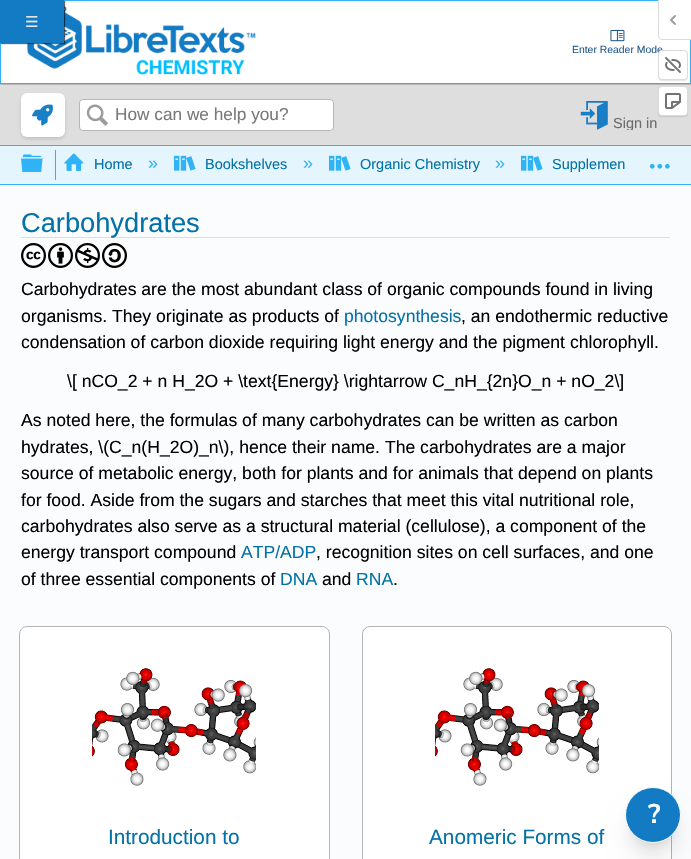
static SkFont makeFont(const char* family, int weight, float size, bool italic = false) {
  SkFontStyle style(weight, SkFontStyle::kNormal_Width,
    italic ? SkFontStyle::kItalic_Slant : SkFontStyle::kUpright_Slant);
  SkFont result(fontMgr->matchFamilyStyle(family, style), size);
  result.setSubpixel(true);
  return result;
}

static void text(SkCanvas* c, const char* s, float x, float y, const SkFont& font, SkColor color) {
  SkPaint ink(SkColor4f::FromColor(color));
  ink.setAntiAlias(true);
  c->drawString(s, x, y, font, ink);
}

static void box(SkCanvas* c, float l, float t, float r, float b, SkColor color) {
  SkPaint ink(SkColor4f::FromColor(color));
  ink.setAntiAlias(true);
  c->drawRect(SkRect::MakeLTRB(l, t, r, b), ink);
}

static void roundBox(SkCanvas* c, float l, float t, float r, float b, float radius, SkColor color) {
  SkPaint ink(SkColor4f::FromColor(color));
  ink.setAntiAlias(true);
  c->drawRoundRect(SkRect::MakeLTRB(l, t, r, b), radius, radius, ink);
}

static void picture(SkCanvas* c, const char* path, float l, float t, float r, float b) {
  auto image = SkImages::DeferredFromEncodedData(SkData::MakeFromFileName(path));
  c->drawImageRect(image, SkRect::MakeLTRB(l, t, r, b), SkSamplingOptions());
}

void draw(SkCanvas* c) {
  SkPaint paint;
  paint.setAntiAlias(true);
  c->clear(0xfffbfcfe);
  paint.setColor(0xffffffff);
  c->drawRect(SkRect::MakeLTRB(0.5f, 0.5f, 690.5f, 83.5f), paint);
  paint.setStyle(SkPaint::kStroke_Style);
  paint.setStrokeWidth(1);
  paint.setColor(0xff30b3f6);
  c->drawRect(SkRect::MakeLTRB(0.5f, 0.5f, 690.5f, 83.5f), paint);
  picture(c, "img_04.png", 27, 6, 256, 75);
  paint.setStyle(SkPaint::kFill_Style);
  paint.setColor(0x99000000);
  paint.setMaskFilter(SkMaskFilter::MakeBlur(kNormal_SkBlurStyle, 0.5f));
  c->drawRect(SkRect::MakeLTRB(1, 1, 65, 44), paint);
  paint.setMaskFilter(nullptr);
  box(c, 0, 0, 64, 43, 0xff127bc4);
  SkFont face1 = makeFont("DejaVu Sans", 400, 15);
  text(c, "☰", 25, 27, face1, 0xffe5e5e5);
  paint.setColor(0xffffffff);
  c->drawPath(SkPathBuilder().moveTo(659, 0).lineTo(691, 0).lineTo(691, 39).lineTo(662, 39).cubicTo(660.5f, 39, 659, 37.5f, 659, 36).close().detach(), paint);
  paint.setColor(0xffdbdbdb);
  c->drawPath(SkPathBuilder(SkPathFillType::kEvenOdd).moveTo(658, 0).lineTo(691, 0).lineTo(691, 40).lineTo(662, 40).cubicTo(660, 40, 658, 38, 658, 36).close().moveTo(659, 0).lineTo(691, 0).lineTo(691, 39).lineTo(662, 39).cubicTo(660, 39, 659, 38, 659, 36).close().detach(), paint);
  picture(c, "img_01.png", 670, 15, 676, 25);
  paint.setColor(0x1a000000);
  paint.setMaskFilter(SkMaskFilter::MakeBlur(kNormal_SkBlurStyle, 0.5f));
  c->drawRoundRect(SkRect::MakeLTRB(658, 51, 688, 81), 4, 4, paint);
  paint.setMaskFilter(nullptr);
  SkFont face2 = makeFont("Liberation Sans", 400, 10.4f);
  text(c, "Enter Reader Mode", 572, 53, face2, 0xff235a8b);
  paint.setColor(0xffffffff);
  c->drawRoundRect(SkRect::MakeLTRB(658.5f, 50.5f, 687.5f, 79.5f), 3.5f, 3.5f, paint);
  paint.setStyle(SkPaint::kStroke_Style);
  paint.setColor(0xffdbdbdb);
  c->drawRoundRect(SkRect::MakeLTRB(658.5f, 50.5f, 687.5f, 79.5f), 3.5f, 3.5f, paint);
  picture(c, "img_02.png", 665, 57, 681, 73);
  box(c, 0, 85, 691, 145, 0xffdedede);
  box(c, 0, 84, 691, 85, 0xffb6b6b6);
  paint.setStyle(SkPaint::kFill_Style);
  paint.setColor(0x1a000000);
  paint.setMaskFilter(SkMaskFilter::MakeBlur(kNormal_SkBlurStyle, 0.5f));
  c->drawRoundRect(SkRect::MakeLTRB(658, 87, 688, 117), 4, 4, paint);
  paint.setMaskFilter(nullptr);
  paint.setColor(0xffffffff);
  c->drawRoundRect(SkRect::MakeLTRB(658.5f, 86.5f, 687.5f, 115.5f), 3.5f, 3.5f, paint);
  paint.setStyle(SkPaint::kStroke_Style);
  paint.setColor(0xffdbdbdb);
  c->drawRoundRect(SkRect::MakeLTRB(658.5f, 86.5f, 687.5f, 115.5f), 3.5f, 3.5f, paint);
  picture(c, "img_03.png", 665, 93, 681, 109);
  picture(c, "img_05.png", 610, 29, 625, 42);
  box(c, 0, 146, 691, 184, 0xffe5f5fe);
  box(c, 0, 145, 691, 146, 0xff30b3f6);
  paint.setStyle(SkPaint::kFill_Style);
  paint.setColor(0x33080808);
  paint.setMaskFilter(SkMaskFilter::MakeBlur(kNormal_SkBlurStyle, 2.5f));
  c->drawRoundRect(SkRect::MakeLTRB(22, 96, 64, 138), 5, 5, paint);
  paint.setMaskFilter(nullptr);
  roundBox(c, 21, 93, 65, 137, 6, 0xffffffff);
  picture(c, "img_06.png", 32, 104, 53, 126);
  paint.setColor(0xffffffff);
  c->drawRoundRect(SkRect::MakeLTRB(79.5f, 99.5f, 333.5f, 130.5f), 3.5f, 3.5f, paint);
  paint.setStyle(SkPaint::kStroke_Style);
  paint.setColor(0xffb6b6b6);
  c->drawRoundRect(SkRect::MakeLTRB(79.5f, 99.5f, 333.5f, 130.5f), 3.5f, 3.5f, paint);
  picture(c, "img_07.png", 86, 104, 108, 126);
  SkFont face3 = makeFont("Liberation Sans", 400, 17.25f);
  text(c, "How can we help you?", 115, 120, face3, 0xff797979);
  picture(c, "img_08.png", 580, 101, 608, 130);
  c->save();
  c->clipRect(SkRect::MakeLTRB(579, 100, 663, 130));
  SkFont face4 = makeFont("Liberation Sans", 400, 14.5f);
  text(c, "Sign in", 613, 128, face4, 0xff6a6b6b);
  c->restore();
  box(c, 0, 184, 691, 185, 0xff30b3f6);
  picture(c, "img_09.png", 21, 154, 43, 172);
  box(c, 55, 150, 56, 180, 0xff30b3f6);
  picture(c, "img_10.png", 64, 153, 84, 171);
  text(c, "Home", 94, 169, face4, 0xff0372a6);
  SkFont face5 = makeFont("Liberation Sans", 400, 18);
  text(c, "»", 148, 169, face5, 0xff30b3f6);
  picture(c, "img_11.png", 174, 155, 196, 171);
  text(c, "Bookshelves", 205, 169, face4, 0xff0372a6);
  text(c, "»", 303, 169, face5, 0xff30b3f6);
  picture(c, "img_11.png", 329, 155, 351, 171);
  text(c, "Organic Chemistry", 360, 169, face4, 0xff0372a6);
  text(c, "»", 495, 169, face5, 0xff30b3f6);
  picture(c, "img_11.png", 521, 155, 543, 171);
  text(c, "Supplemen", 552, 169, face4, 0xff0372a6);
  picture(c, "img_12.png", 649, 163, 670, 169);
  box(c, 21, 237, 670, 238, 0xffdddddd);
  SkFont face6 = makeFont("Liberation Sans", 400, 27.25f);
  text(c, "Carbohydrates", 21, 232, face6, 0xff0372a6);
  picture(c, "img_13.png", 21, 243, 46, 268);
  picture(c, "img_14.png", 48, 243, 73, 268);
  picture(c, "img_15.png", 75, 243, 100, 268);
  picture(c, "img_16.png", 102, 243, 127, 268);
  SkFont face7 = makeFont("Liberation Sans", 400, 17.6f);
  text(c, "Carbohydrates are the most abundant class of organic compounds found in living", 21, 295, face7, 0xff000000);
  text(c, "organisms. They originate as products of", 21, 322, face7, 0xff000000);
  text(c, "photosynthesis", 344, 322, face7, 0xff0372a6);
  text(c, ", an endothermic reductive", 461, 322, face7, 0xff000000);
  text(c, "condensation of carbon dioxide requiring light energy and the pigment chlorophyll.", 21, 348, face7, 0xff000000);
  text(c, "\\[ nCO_2 + n H_2O + \\text{Energy} \\rightarrow C_nH_{2n}O_n + nO_2\\]", 67, 387, face7, 0xff000000);
  text(c, "As noted here, the formulas of many carbohydrates can be written as carbon", 21, 426, face7, 0xff000000);
  text(c, "hydrates, \\(C_n(H_2O)_n\\), hence their name. The carbohydrates are a major", 21, 453, face7, 0xff000000);
  text(c, "source of metabolic energy, both for plants and for animals that depend on plants", 21, 479, face7, 0xff000000);
  text(c, "for food. Aside from the sugars and starches that meet this vital nutritional role,", 21, 506, face7, 0xff000000);
  text(c, "carbohydrates also serve as a structural material (cellulose), a component of the", 21, 532, face7, 0xff000000);
  text(c, "energy transport compound", 21, 558, face7, 0xff000000);
  text(c, "ATP/ADP", 241, 558, face7, 0xff0372a6);
  text(c, ", recognition sites on cell surfaces, and one", 316, 558, face7, 0xff000000);
  text(c, "of three essential components of", 21, 585, face7, 0xff000000);
  text(c, "DNA", 280, 585, face7, 0xff0372a6);
  text(c, "and", 322, 585, face7, 0xff000000);
  text(c, "RNA", 356, 585, face7, 0xff0372a6);
  text(c, ".", 393, 585, face7, 0xff000000);
  paint.setStyle(SkPaint::kFill_Style);
  paint.setColor(0xffffffff);
  c->drawRoundRect(SkRect::MakeLTRB(19.5f, 626.5f, 329.5f, 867.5f), 7.5f, 7.5f, paint);
  paint.setStyle(SkPaint::kStroke_Style);
  paint.setColor(0xffb4b4b4);
  c->drawRoundRect(SkRect::MakeLTRB(19.5f, 626.5f, 329.5f, 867.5f), 7.5f, 7.5f, paint);
  picture(c, "img_17.png", 92, 668, 256, 786);
  SkFont face8 = makeFont("Liberation Sans", 400, 20.75f);
  text(c, "Introduction to", 108, 844, face8, 0xff0372a6);
  paint.setStyle(SkPaint::kFill_Style);
  paint.setColor(0xffffffff);
  c->drawRoundRect(SkRect::MakeLTRB(362.5f, 626.5f, 671.5f, 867.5f), 7.5f, 7.5f, paint);
  paint.setStyle(SkPaint::kStroke_Style);
  paint.setColor(0xffb4b4b4);
  c->drawRoundRect(SkRect::MakeLTRB(362.5f, 626.5f, 671.5f, 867.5f), 7.5f, 7.5f, paint);
  picture(c, "img_17.png", 435, 668, 599, 786);
  text(c, "Anomeric Forms of", 429, 844, face8, 0xff0372a6);
  paint.setStyle(SkPaint::kFill_Style);
  paint.setColor(0x1a000000);
  paint.setMaskFilter(SkMaskFilter::MakeBlur(kNormal_SkBlurStyle, 5));
  c->drawRoundRect(SkRect::MakeLTRB(631, 801, 675, 845), 22, 22, paint);
  paint.setMaskFilter(nullptr);
  paint.setMaskFilter(SkMaskFilter::MakeBlur(kNormal_SkBlurStyle, 12.5f));
  c->drawRoundRect(SkRect::MakeLTRB(630, 812, 676, 858), 23, 23, paint);
  paint.setMaskFilter(nullptr);
  paint.setColor(0xff127bc4);
  c->drawCircle(653, 815, 27.5f, paint);
  paint.setStyle(SkPaint::kStroke_Style);
  paint.setColor(0xffffffff);
  c->drawCircle(653, 815, 27.5f, paint);
  SkFont face9 = makeFont("Nunito Sans", 700, 27);
  text(c, "?", 648, 823, face9, 0xffffffff);
}
